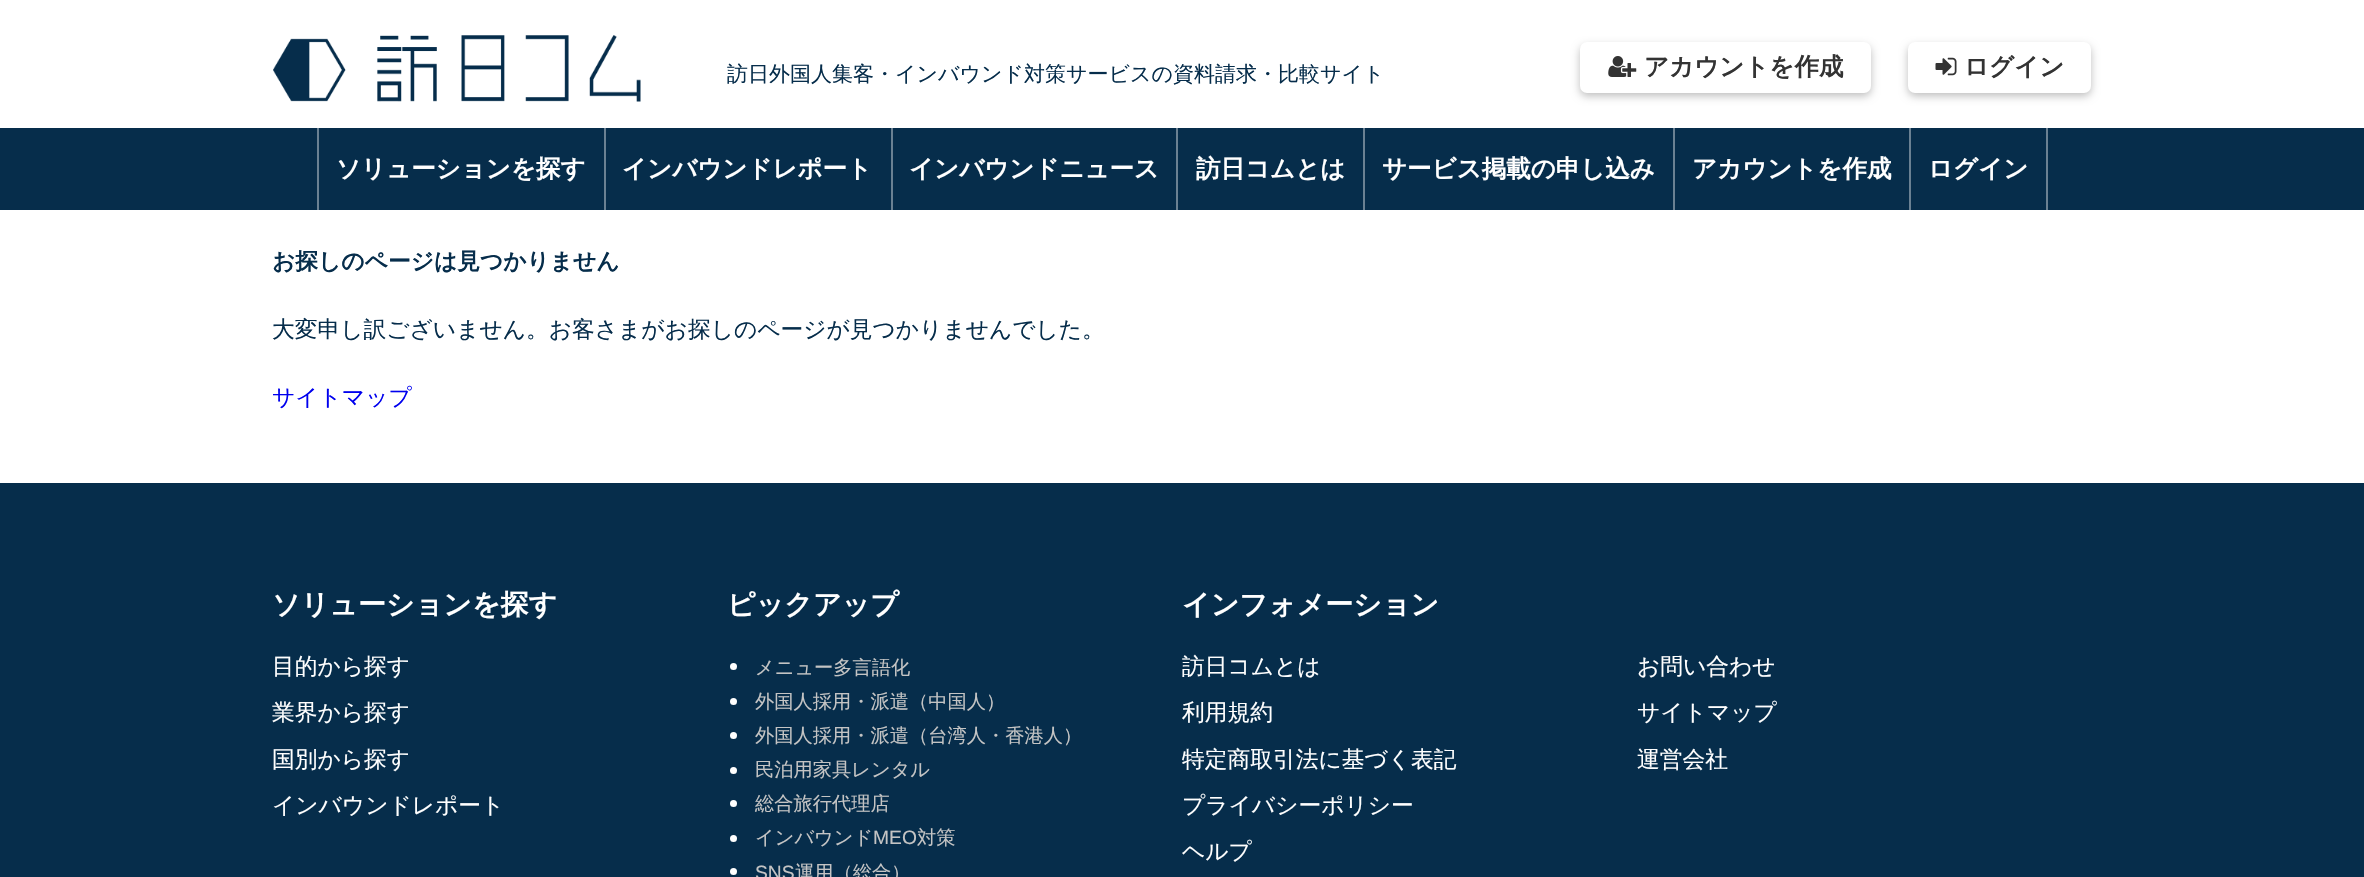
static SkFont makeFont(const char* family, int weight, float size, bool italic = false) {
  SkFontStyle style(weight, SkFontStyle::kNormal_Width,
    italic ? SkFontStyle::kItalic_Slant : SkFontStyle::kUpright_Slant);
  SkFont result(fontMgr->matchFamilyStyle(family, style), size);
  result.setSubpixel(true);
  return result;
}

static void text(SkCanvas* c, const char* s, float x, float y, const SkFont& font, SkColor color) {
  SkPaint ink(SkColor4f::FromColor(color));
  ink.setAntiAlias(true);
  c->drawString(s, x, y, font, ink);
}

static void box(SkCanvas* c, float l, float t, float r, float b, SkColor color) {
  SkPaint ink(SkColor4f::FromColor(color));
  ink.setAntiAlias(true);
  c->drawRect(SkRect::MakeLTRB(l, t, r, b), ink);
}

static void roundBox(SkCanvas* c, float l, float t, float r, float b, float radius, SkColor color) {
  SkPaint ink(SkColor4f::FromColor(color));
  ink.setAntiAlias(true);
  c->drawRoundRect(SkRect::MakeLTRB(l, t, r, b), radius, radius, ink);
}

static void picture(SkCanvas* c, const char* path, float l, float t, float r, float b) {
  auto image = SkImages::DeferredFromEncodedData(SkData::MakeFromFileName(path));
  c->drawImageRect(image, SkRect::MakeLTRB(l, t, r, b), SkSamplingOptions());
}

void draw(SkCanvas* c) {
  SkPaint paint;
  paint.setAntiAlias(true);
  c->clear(0xffffffff);
  picture(c, "img_01.png", 273, 35, 641, 102);
  SkFont face1 = makeFont("WenQuanYi Zen Hei", 500, 21);
  text(c, "訪日外国人集客・インバウンド対策サービスの資料請求・比較サイト", 727, 81, face1, 0xff062d4b);
  paint.setColor(0x42000000);
  paint.setMaskFilter(SkMaskFilter::MakeBlur(kNormal_SkBlurStyle, 4.5f));
  c->drawRoundRect(SkRect::MakeLTRB(1580, 46, 1871, 96), 7, 7, paint);
  paint.setMaskFilter(nullptr);
  roundBox(c, 1580, 42, 1871, 93, 7, 0xffffffff);
  picture(c, "img_02.png", 1608, 56, 1637, 77);
  SkFont face2 = makeFont("WenQuanYi Zen Hei", 700, 24.5f);
  text(c, "アカウントを作成", 1644, 75, face2, 0xff333333);
  paint.setMaskFilter(SkMaskFilter::MakeBlur(kNormal_SkBlurStyle, 4.5f));
  c->drawRoundRect(SkRect::MakeLTRB(1908, 46, 2091, 96), 7, 7, paint);
  paint.setMaskFilter(nullptr);
  roundBox(c, 1908, 42, 2091, 93, 7, 0xffffffff);
  picture(c, "img_03.png", 1935, 57, 1957, 76);
  text(c, "ログイン", 1964, 75, face2, 0xff333333);
  box(c, 0, 128, 2364, 210, 0xff062d4b);
  box(c, 317, 128, 319, 210, 0xff6a8193);
  text(c, "ソリューションを探す", 336, 177, face2, 0xffffffff);
  box(c, 604, 128, 606, 210, 0xff6a8193);
  text(c, "インバウンドレポート", 622, 177, face2, 0xffffffff);
  box(c, 891, 128, 893, 210, 0xff6a8193);
  text(c, "インバウンドニュース", 909, 177, face2, 0xffffffff);
  box(c, 1176, 128, 1178, 210, 0xff6a8193);
  text(c, "訪日コムとは", 1196, 177, face2, 0xffffffff);
  box(c, 1363, 128, 1365, 210, 0xff6a8193);
  text(c, "サービス掲載の申し込み", 1382, 177, face2, 0xffffffff);
  box(c, 1673, 128, 1675, 210, 0xff6a8193);
  text(c, "アカウントを作成", 1692, 177, face2, 0xffffffff);
  box(c, 2046, 128, 2048, 210, 0xff6a8193);
  box(c, 1909, 128, 1911, 210, 0xff6a8193);
  text(c, "ログイン", 1928, 177, face2, 0xffffffff);
  SkFont face3 = makeFont("WenQuanYi Zen Hei", 700, 22.75f);
  text(c, "お探しのページは見つかりません", 272, 269, face3, 0xff062d4b);
  SkFont face4 = makeFont("WenQuanYi Zen Hei", 500, 22.75f);
  text(c, "大変申し訳ございません。お客さまがお探しのページが見つかりませんでした。", 272, 337, face4, 0xff062d4b);
  text(c, "サイトマップ", 272, 405, face4, 0xff0000ee);
  box(c, 0, 483, 2364, 877, 0xff062d4b);
  SkFont face5 = makeFont("WenQuanYi Zen Hei", 700, 28);
  text(c, "ソリューションを探す", 272, 614, face5, 0xffffffff);
  text(c, "目的から探す", 272, 674, face4, 0xffffffff);
  text(c, "業界から探す", 272, 720, face4, 0xffffffff);
  text(c, "国別から探す", 272, 767, face4, 0xffffffff);
  text(c, "インバウンドレポート", 272, 813, face4, 0xffffffff);
  text(c, "ピックアップ", 727, 614, face5, 0xffffffff);
  paint.setColor(0xffffffff);
  c->drawCircle(733.5f, 666.5f, 3.5f, paint);
  SkFont face6 = makeFont("WenQuanYi Zen Hei", 500, 19.25f);
  text(c, "メニュー多言語化", 755, 674, face6, 0xffc4c4c4);
  c->drawCircle(733.5f, 701.5f, 3.5f, paint);
  text(c, "外国人採用・派遣（中国人）", 755, 708, face6, 0xffc4c4c4);
  c->drawCircle(733.5f, 735.5f, 3.5f, paint);
  text(c, "外国人採用・派遣（台湾人・香港人）", 755, 742, face6, 0xffc4c4c4);
  c->drawCircle(733.5f, 770.5f, 3.5f, paint);
  text(c, "民泊用家具レンタル", 755, 776, face6, 0xffc4c4c4);
  c->drawCircle(733.5f, 803.5f, 3.5f, paint);
  text(c, "総合旅行代理店", 755, 810, face6, 0xffc4c4c4);
  c->drawCircle(733.5f, 838.5f, 3.5f, paint);
  text(c, "インバウンド", 755, 844, face6, 0xffc4c4c4);
  SkFont face7 = makeFont("Liberation Sans", 400, 19.25f);
  text(c, "MEO", 873, 844, face7, 0xffc4c4c4);
  text(c, "対策", 917, 844, face6, 0xffc4c4c4);
  c->drawCircle(733.5f, 871.5f, 3.5f, paint);
  text(c, "SNS", 755, 879, face7, 0xffc4c4c4);
  text(c, "運用（総合）", 795, 879, face6, 0xffc4c4c4);
  text(c, "インフォメーション", 1182, 614, face5, 0xffffffff);
  text(c, "訪日コムとは", 1182, 674, face4, 0xffffffff);
  text(c, "利用規約", 1182, 720, face4, 0xffffffff);
  text(c, "特定商取引法に基づく表記", 1182, 767, face4, 0xffffffff);
  text(c, "プライバシーポリシー", 1182, 813, face4, 0xffffffff);
  text(c, "ヘルプ", 1182, 859, face4, 0xffffffff);
  text(c, "お問い合わせ", 1637, 674, face4, 0xffffffff);
  text(c, "サイトマップ", 1637, 720, face4, 0xffffffff);
  text(c, "運営会社", 1637, 767, face4, 0xffffffff);
}
